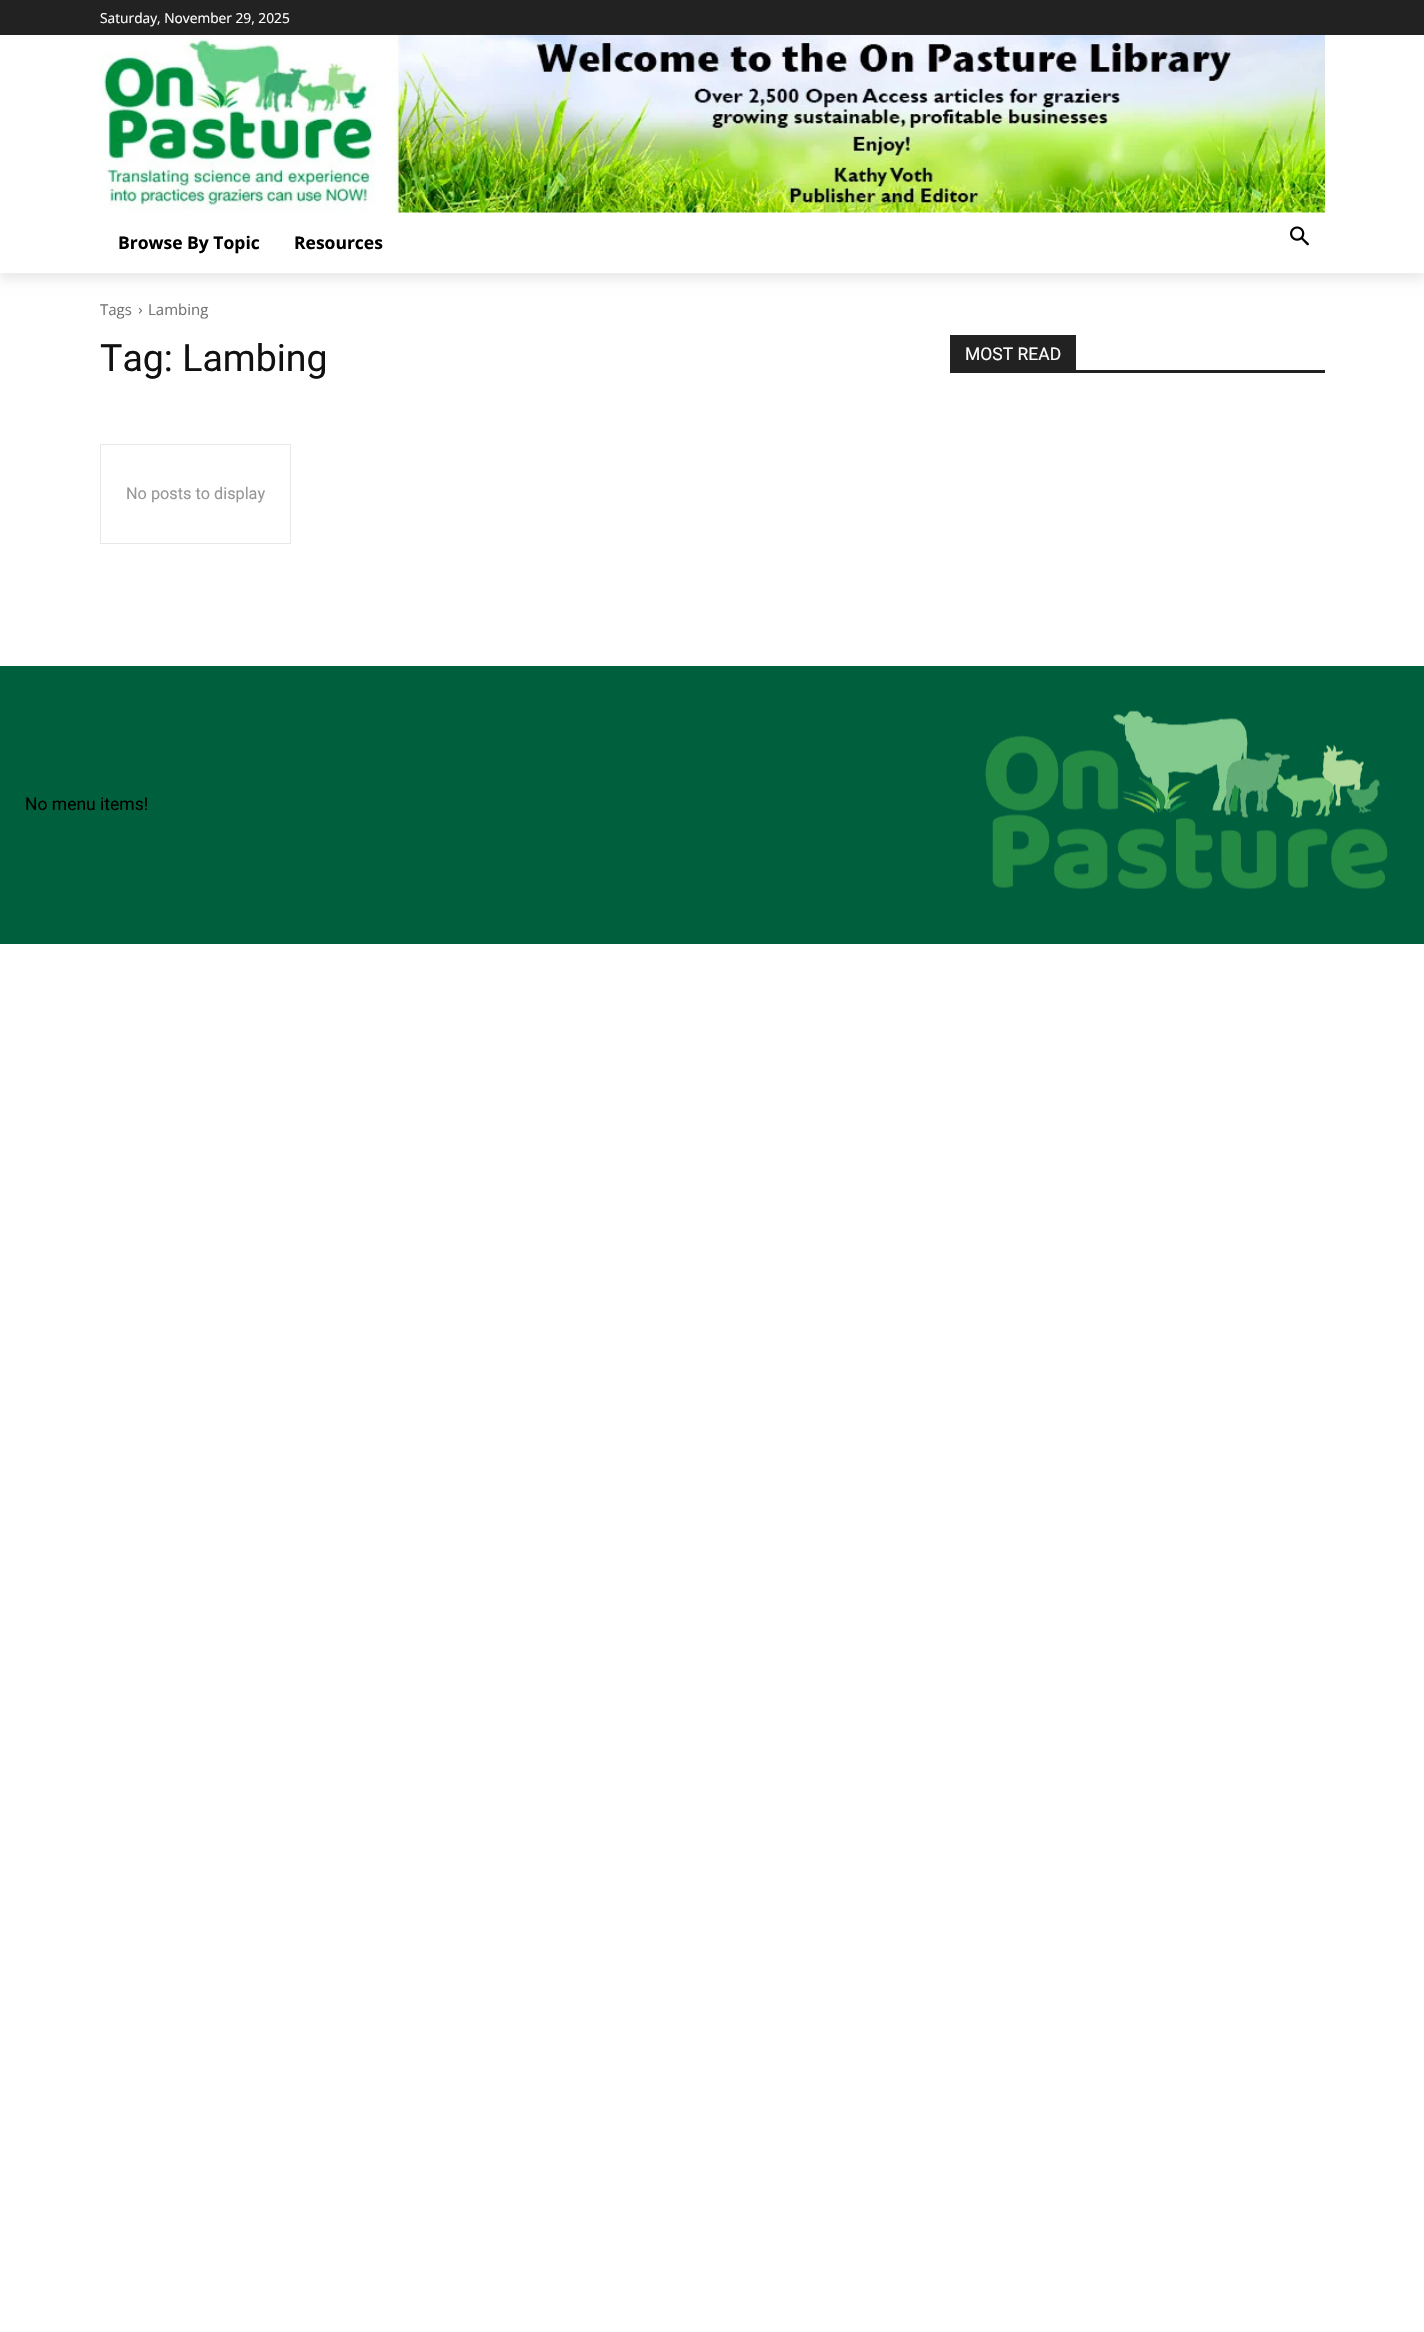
static SkFont makeFont(const char* family, int weight, float size, bool italic = false) {
  SkFontStyle style(weight, SkFontStyle::kNormal_Width,
    italic ? SkFontStyle::kItalic_Slant : SkFontStyle::kUpright_Slant);
  SkFont result(fontMgr->matchFamilyStyle(family, style), size);
  result.setSubpixel(true);
  return result;
}

static void text(SkCanvas* c, const char* s, float x, float y, const SkFont& font, SkColor color) {
  SkPaint ink(SkColor4f::FromColor(color));
  ink.setAntiAlias(true);
  c->drawString(s, x, y, font, ink);
}

static void box(SkCanvas* c, float l, float t, float r, float b, SkColor color) {
  SkPaint ink(SkColor4f::FromColor(color));
  ink.setAntiAlias(true);
  c->drawRect(SkRect::MakeLTRB(l, t, r, b), ink);
}

static void picture(SkCanvas* c, const char* path, float l, float t, float r, float b) {
  auto image = SkImages::DeferredFromEncodedData(SkData::MakeFromFileName(path));
  c->drawImageRect(image, SkRect::MakeLTRB(l, t, r, b), SkSamplingOptions());
}

void draw(SkCanvas* c) {
  SkPaint paint;
  paint.setAntiAlias(true);
  c->clear(0xffffffff);
  box(c, 0, 0, 1424, 35, 0xff222222);
  picture(c, "img_01.png", 100, 35, 1325, 213);
  c->save();
  c->clipPath(SkPathBuilder(SkPathFillType::kEvenOdd).moveTo(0, 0).lineTo(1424, 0).lineTo(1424, 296).lineTo(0, 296).close().moveTo(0, 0).lineTo(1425, 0).lineTo(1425, 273).lineTo(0, 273).close().detach(), true);
  paint.setColor(0x14000000);
  paint.setMaskFilter(SkMaskFilter::MakeBlur(kNormal_SkBlurStyle, 5));
  c->drawRect(SkRect::MakeLTRB(0, 8, 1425, 280), paint);
  paint.setMaskFilter(nullptr);
  c->restore();
  SkFont face1 = makeFont("Open Sans", 400, 13.75f);
  text(c, "Saturday, November 29, 2025", 100, 23, face1, 0xffffffff);
  SkFont face2 = makeFont("Open Sans", 700, 17.5f);
  text(c, "Browse By Topic", 118, 249, face2, 0xff000000);
  text(c, "Resources", 294, 249, face2, 0xff000000);
  picture(c, "img_02.png", 1290, 226, 1309, 246);
  SkFont face3 = makeFont("Open Sans", 400, 15);
  text(c, "Tags", 100, 315, face3, 0xff747474);
  picture(c, "img_03.png", 138, 307, 143, 314);
  text(c, "Lambing", 148, 315, face3, 0xff747474);
  SkFont face4 = makeFont("Roboto", 400, 37.5f);
  text(c, "Tag: Lambing", 100, 371, face4, 0xff111111);
  paint.setStyle(SkPaint::kStroke_Style);
  paint.setStrokeWidth(1);
  paint.setColor(0xffe8e8e8);
  c->drawRect(SkRect::MakeLTRB(100.5f, 444.5f, 290.5f, 543.5f), paint);
  SkFont face5 = makeFont("Roboto", 400, 16.25f);
  text(c, "No posts to display", 126, 499, face5, 0xff979797);
  box(c, 950, 370, 1325, 373, 0xff222222);
  box(c, 950, 335, 1076, 370, 0xff222222);
  SkFont face6 = makeFont("Roboto", 400, 17.5f);
  text(c, "MOST READ", 965, 360, face6, 0xffffffff);
  box(c, 0, 666, 1424, 944, 0xff00603e);
  text(c, "No menu items!", 25, 810, face6, 0xff000000);
  picture(c, "img_04.png", 985, 710, 1388, 889);
}
